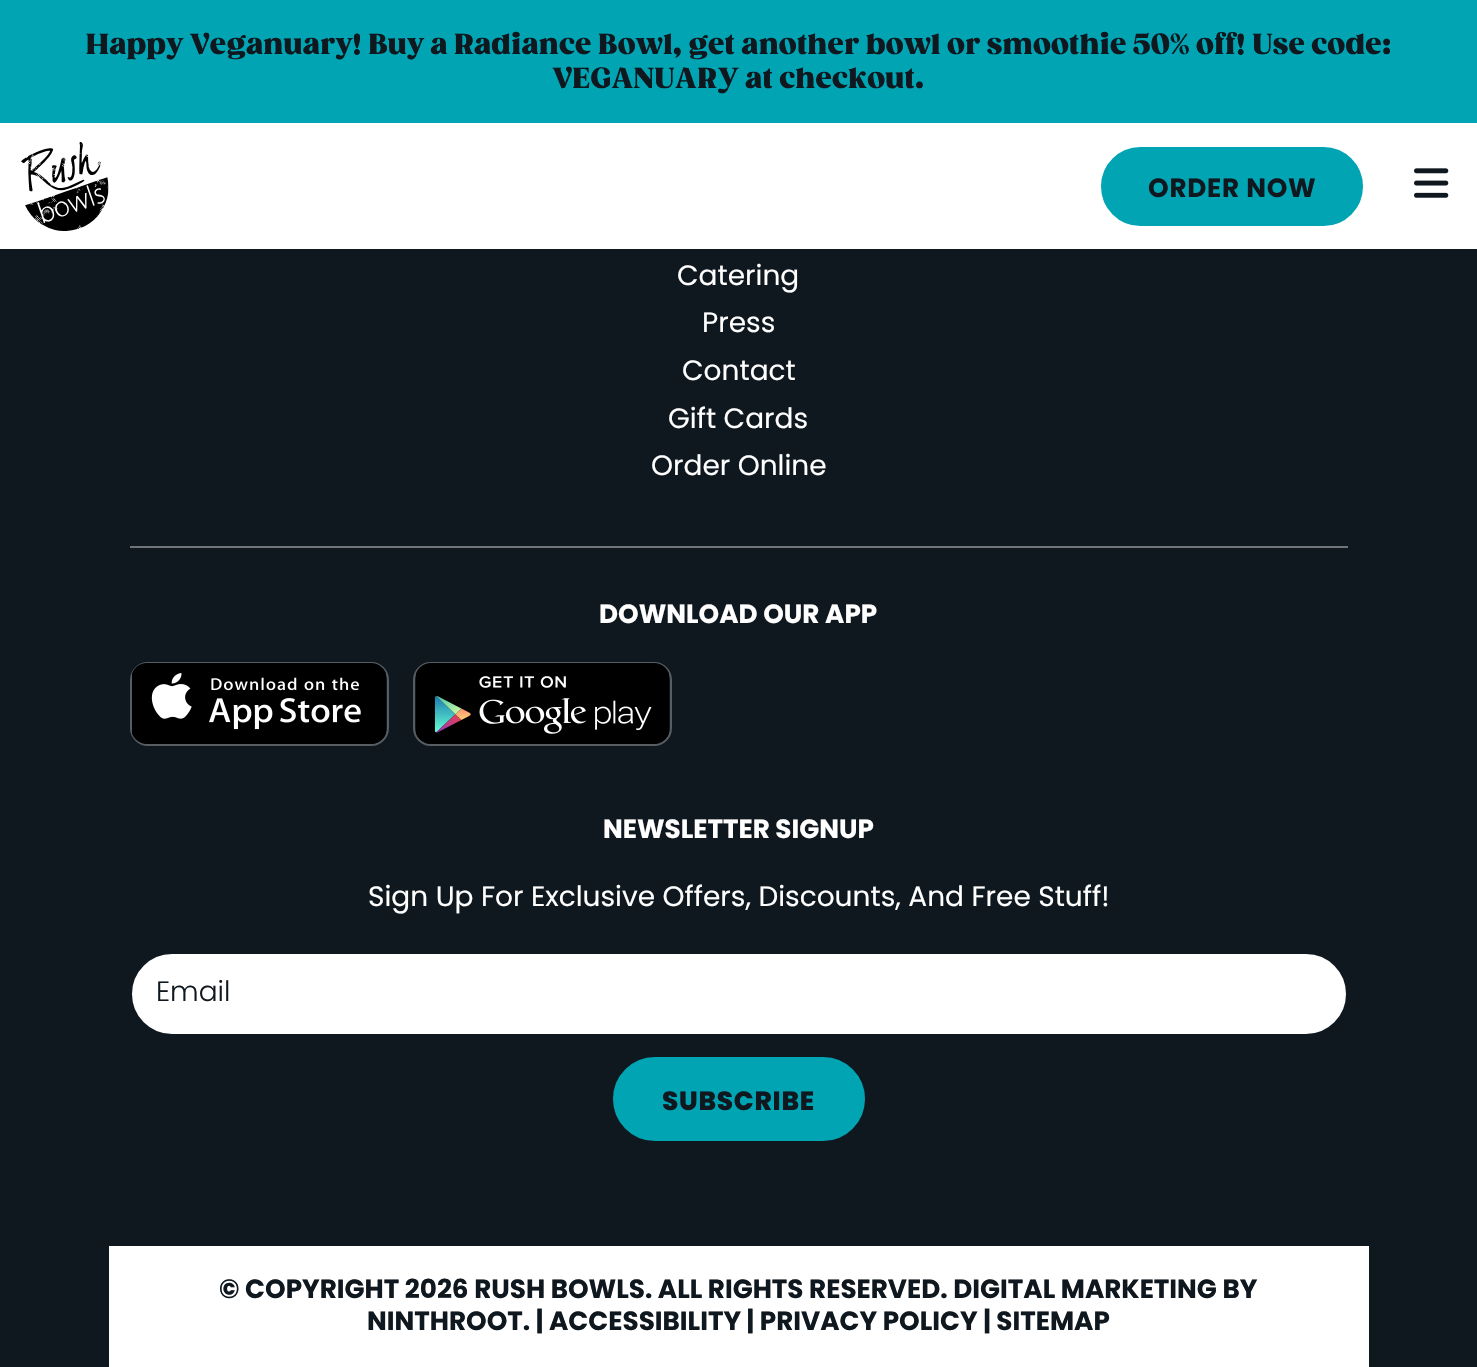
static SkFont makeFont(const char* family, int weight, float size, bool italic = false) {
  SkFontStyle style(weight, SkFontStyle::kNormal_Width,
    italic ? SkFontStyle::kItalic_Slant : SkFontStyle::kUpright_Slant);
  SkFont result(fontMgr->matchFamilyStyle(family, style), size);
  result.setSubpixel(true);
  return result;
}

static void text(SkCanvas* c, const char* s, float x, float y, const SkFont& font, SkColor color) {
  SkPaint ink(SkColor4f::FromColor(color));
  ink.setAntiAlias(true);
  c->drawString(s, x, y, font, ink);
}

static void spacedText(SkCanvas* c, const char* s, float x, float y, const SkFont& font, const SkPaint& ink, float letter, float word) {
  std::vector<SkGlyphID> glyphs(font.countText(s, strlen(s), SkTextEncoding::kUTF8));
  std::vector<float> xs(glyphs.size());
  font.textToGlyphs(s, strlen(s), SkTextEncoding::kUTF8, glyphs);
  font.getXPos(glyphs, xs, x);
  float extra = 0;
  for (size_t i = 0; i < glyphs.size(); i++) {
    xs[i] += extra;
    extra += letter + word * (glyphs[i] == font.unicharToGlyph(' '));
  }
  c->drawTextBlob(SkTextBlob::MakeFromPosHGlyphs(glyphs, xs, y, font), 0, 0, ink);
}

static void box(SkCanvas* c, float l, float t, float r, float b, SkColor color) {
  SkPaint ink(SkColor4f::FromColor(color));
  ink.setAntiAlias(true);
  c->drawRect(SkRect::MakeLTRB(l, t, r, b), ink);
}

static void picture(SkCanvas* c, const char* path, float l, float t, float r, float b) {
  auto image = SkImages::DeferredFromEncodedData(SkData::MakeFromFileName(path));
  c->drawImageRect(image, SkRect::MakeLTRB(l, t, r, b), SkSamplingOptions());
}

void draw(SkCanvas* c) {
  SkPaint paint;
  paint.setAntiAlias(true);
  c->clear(0xff10181f);
  box(c, 0, 123, 1477, 249, 0xffffffff);
  box(c, 0, 0, 1477, 123, 0xff00a4b3);
  SkFont face1 = makeFont("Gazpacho", 900, 28);
  paint.setColor(0xff10181f);
  spacedText(c, "Happy Veganuary! Buy a Radiance Bowl, get another bowl or smoothie 50% off! Use code:", 86, 54, face1, paint, 0.7f, 0);
  spacedText(c, "VEGANUARY at checkout.", 552, 88, face1, paint, 0.7f, 0);
  picture(c, "img_01.png", 21, 142, 109, 231);
  paint.setColor(0xff00a4b3);
  c->drawRoundRect(SkRect::MakeLTRB(1102, 148, 1362, 225), 38.5f, 38.5f, paint);
  paint.setStyle(SkPaint::kStroke_Style);
  paint.setStrokeWidth(2);
  c->drawRoundRect(SkRect::MakeLTRB(1102, 148, 1362, 225), 38.5f, 38.5f, paint);
  SkFont face2 = makeFont("Poppins", 700, 26.25f);
  paint.setStyle(SkPaint::kFill_Style);
  paint.setColor(0xff10181f);
  spacedText(c, "ORDER NOW", 1148, 197, face2, paint, 0.75f, 0);
  picture(c, "img_02.png", 1414, 168, 1449, 198);
  SkFont face3 = makeFont("Poppins", 400, 28);
  text(c, "Catering", 677, 285, face3, 0xffffffff);
  text(c, "Press", 702, 332, face3, 0xffffffff);
  text(c, "Contact", 682, 380, face3, 0xffffffff);
  text(c, "Gift Cards", 668, 428, face3, 0xffffffff);
  text(c, "Order Online", 651, 475, face3, 0xffffffff);
  box(c, 130, 546, 1348, 548, 0xff707479);
  text(c, "DOWNLOAD OUR APP", 599, 623, face2, 0xffffffff);
  paint.setStyle(SkPaint::kStroke_Style);
  paint.setColor(0xff585d62);
  c->drawRoundRect(SkRect::MakeLTRB(131, 663, 388, 745), 17, 17, paint);
  picture(c, "img_03.png", 132, 663, 386, 744);
  c->drawRoundRect(SkRect::MakeLTRB(414, 663, 671, 745), 17, 17, paint);
  picture(c, "img_04.png", 416, 663, 669, 744);
  text(c, "NEWSLETTER SIGNUP", 603, 838, face2, 0xffffffff);
  text(c, "Sign Up For Exclusive Offers, Discounts, And Free Stuff!", 368, 906, face3, 0xffffffff);
  paint.setStyle(SkPaint::kFill_Style);
  paint.setColor(0xffffffff);
  c->drawRoundRect(SkRect::MakeLTRB(131, 953, 1347, 1035), 41, 41, paint);
  paint.setStyle(SkPaint::kStroke_Style);
  paint.setColor(0xff10181f);
  c->drawRoundRect(SkRect::MakeLTRB(131, 953, 1347, 1035), 41, 41, paint);
  SkFont face4 = makeFont("Poppins", 300, 28);
  text(c, "Email", 156, 1001, face4, 0xff10181f);
  paint.setStyle(SkPaint::kFill_Style);
  paint.setColor(0xff00a4b3);
  c->drawRoundRect(SkRect::MakeLTRB(615.5f, 1059.5f, 862.5f, 1138.5f), 39.5f, 39.5f, paint);
  paint.setStyle(SkPaint::kStroke_Style);
  paint.setStrokeWidth(5);
  c->drawRoundRect(SkRect::MakeLTRB(615.5f, 1059.5f, 862.5f, 1138.5f), 39.5f, 39.5f, paint);
  SkFont face5 = makeFont("Poppins", 800, 26.25f);
  paint.setStyle(SkPaint::kFill_Style);
  paint.setColor(0xff10181f);
  spacedText(c, "SUBSCRIBE", 662, 1110, face5, paint, 0.75f, 0);
  box(c, 109, 1246, 1369, 1367, 0xffffffff);
  text(c, "© COPYRIGHT 2026 RUSH BOWLS. ALL RIGHTS RESERVED. DIGITAL MARKETING BY", 219, 1298, face2, 0xff10181f);
  text(c, "NINTHROOT. | ACCESSIBILITY | PRIVACY POLICY | SITEMAP", 367, 1330, face2, 0xff10181f);
}
